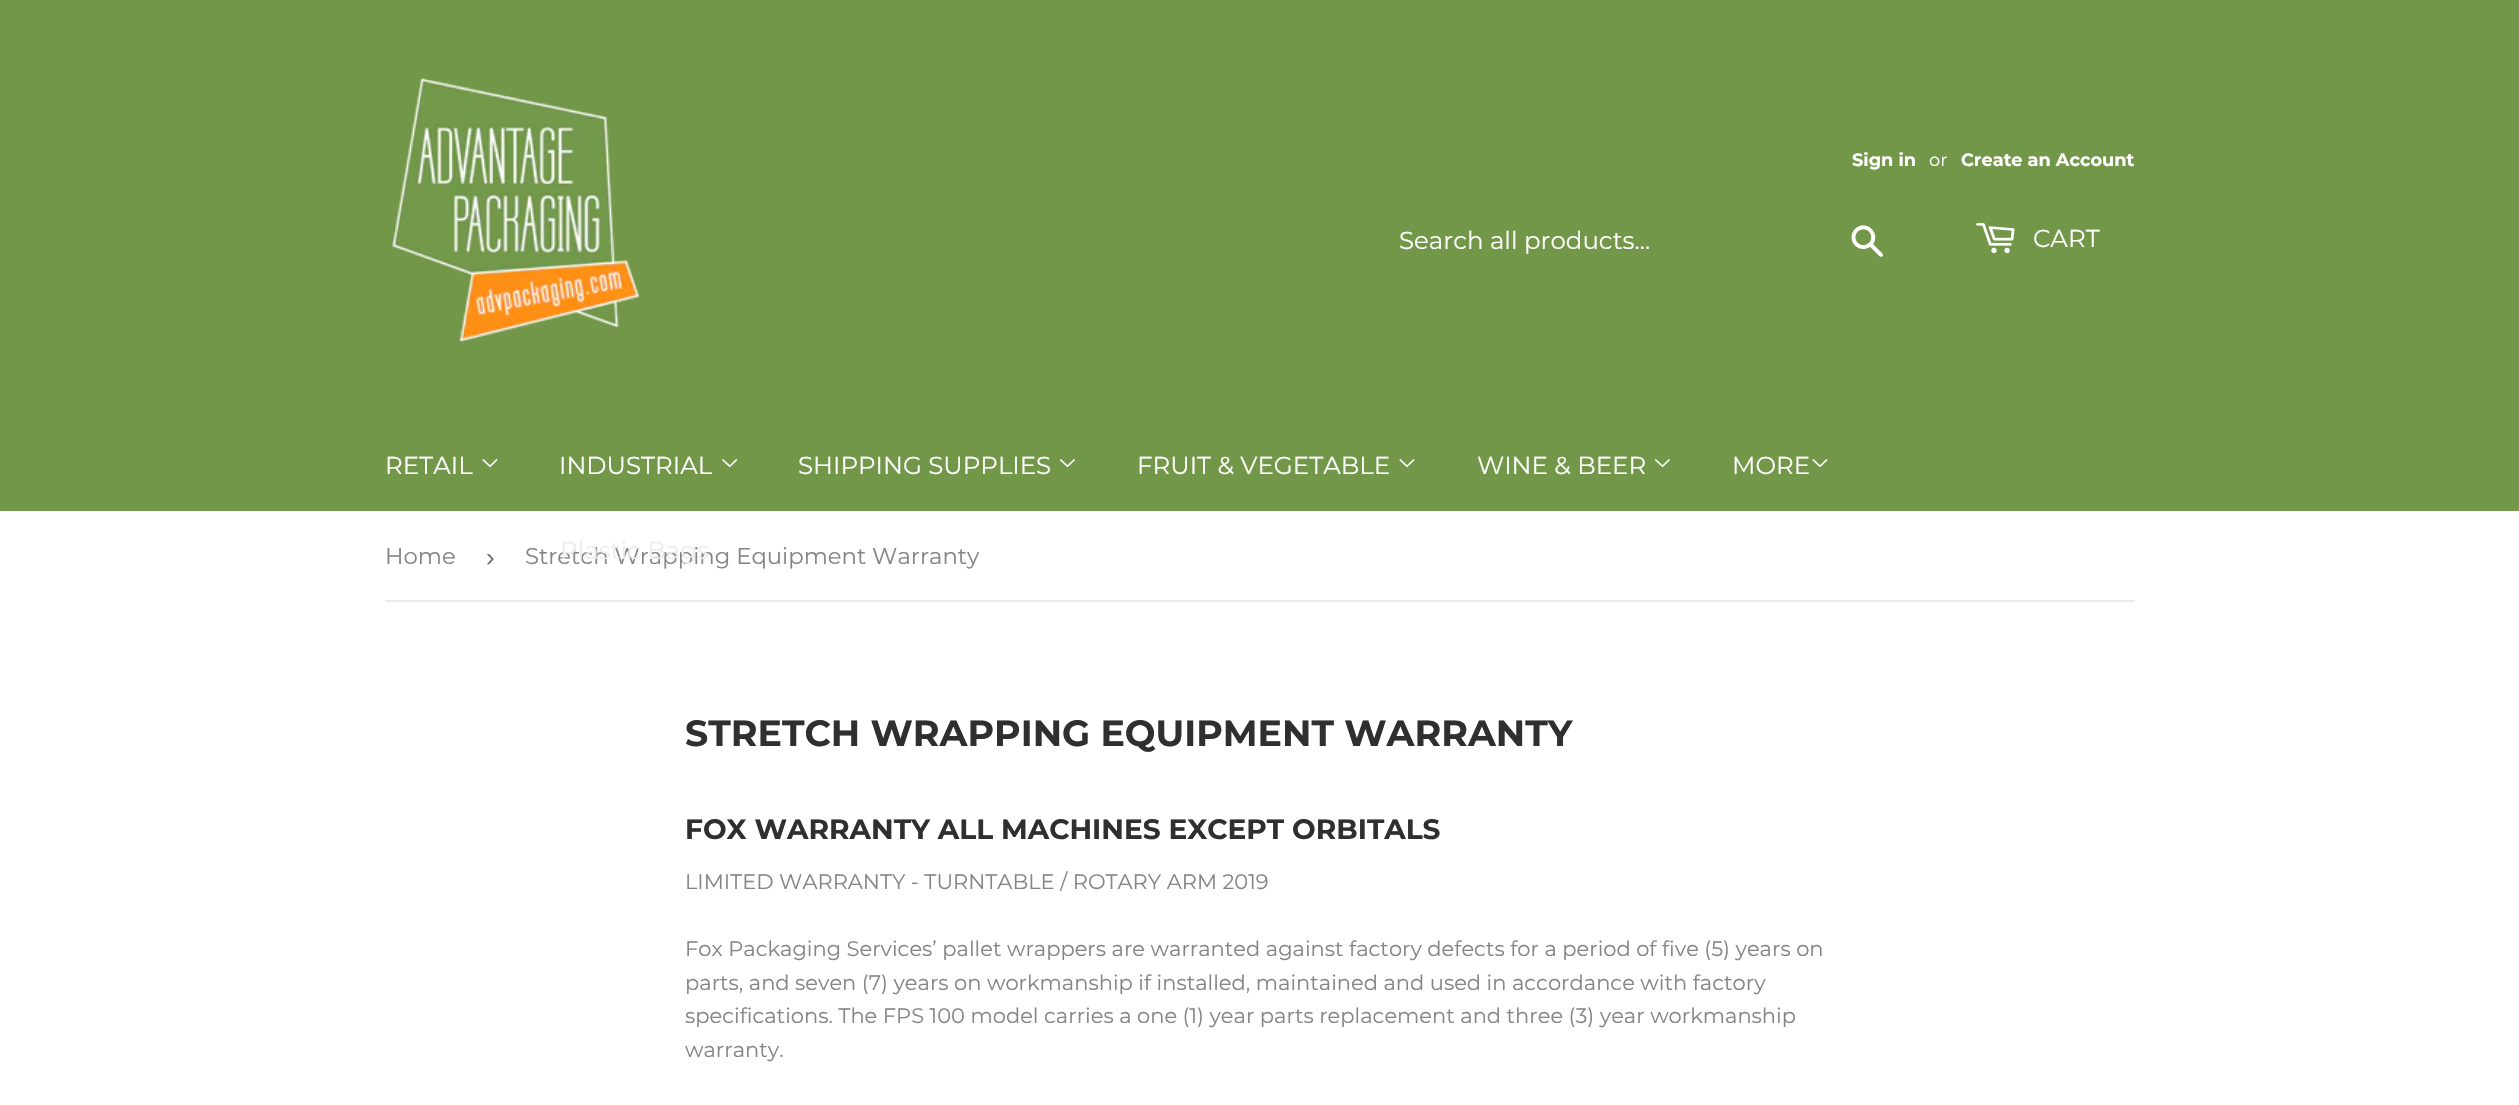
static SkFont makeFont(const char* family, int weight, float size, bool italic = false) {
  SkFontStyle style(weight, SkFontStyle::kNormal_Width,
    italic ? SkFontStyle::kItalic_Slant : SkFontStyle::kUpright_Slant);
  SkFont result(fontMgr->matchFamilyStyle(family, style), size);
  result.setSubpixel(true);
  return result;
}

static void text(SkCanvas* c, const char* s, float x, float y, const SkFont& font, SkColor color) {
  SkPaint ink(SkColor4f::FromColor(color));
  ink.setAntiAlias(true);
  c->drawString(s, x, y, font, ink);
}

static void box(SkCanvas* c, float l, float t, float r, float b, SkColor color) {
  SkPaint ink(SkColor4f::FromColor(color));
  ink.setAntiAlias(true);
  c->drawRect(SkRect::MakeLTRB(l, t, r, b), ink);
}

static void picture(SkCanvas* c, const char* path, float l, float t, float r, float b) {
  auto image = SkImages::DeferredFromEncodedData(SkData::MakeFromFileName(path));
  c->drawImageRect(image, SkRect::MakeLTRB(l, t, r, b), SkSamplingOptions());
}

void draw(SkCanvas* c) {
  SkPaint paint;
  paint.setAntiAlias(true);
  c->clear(0xffffffff);
  box(c, 0, 0, 2519, 511, 0xff729749);
  picture(c, "img_01.png", 392, 78, 640, 342);
  SkFont face1 = makeFont("Montserrat", 700, 17.75f);
  text(c, "Sign in", 1852, 166, face1, 0xffffffff);
  SkFont face2 = makeFont("Montserrat", 400, 17.75f);
  text(c, "or", 1929, 166, face2, 0xffffffff);
  text(c, "Create an Account", 1961, 166, face1, 0xffffffff);
  SkFont face3 = makeFont("Montserrat", 400, 24.5f);
  text(c, "Search all products...", 1399, 249, face3, 0xffffffff);
  picture(c, "img_02.png", 1851, 225, 1883, 257);
  picture(c, "img_03.png", 1976, 223, 2015, 254);
  text(c, "CART", 2033, 247, face3, 0xffffffff);
  text(c, "RETAIL", 385, 474, face3, 0xffffffff);
  picture(c, "img_04.png", 482, 459, 498, 468);
  text(c, "INDUSTRIAL", 559, 474, face3, 0xffffffff);
  picture(c, "img_05.png", 722, 459, 738, 468);
  SkFont face4 = makeFont("Montserrat", 400, 22.75f);
  text(c, "Stretch Wrapping Equipment Warranty", 525, 564, face4, 0xff858585);
  text(c, "Plastic Bags", 560, 559, face3, 0xffededed);
  text(c, "SHIPPING SUPPLIES", 798, 474, face3, 0xffffffff);
  picture(c, "img_06.png", 1060, 459, 1075, 468);
  text(c, "FRUIT & VEGETABLE", 1137, 474, face3, 0xffffffff);
  picture(c, "img_04.png", 1399, 459, 1415, 468);
  text(c, "WINE & BEER", 1477, 474, face3, 0xffffffff);
  picture(c, "img_06.png", 1655, 459, 1670, 468);
  text(c, "MORE", 1732, 474, face3, 0xffffffff);
  picture(c, "img_04.png", 1812, 459, 1828, 468);
  box(c, 385, 600, 2135, 602, 0xffececec);
  text(c, "Home", 385, 564, face4, 0xff858585);
  SkFont face5 = makeFont("Liberation Sans", 400, 26);
  text(c, "›", 486, 566, face5, 0xff767676);
  SkFont face6 = makeFont("Montserrat", 700, 36.4f);
  text(c, "STRETCH WRAPPING EQUIPMENT WARRANTY", 685, 746, face6, 0xff2f2f2f);
  SkFont face7 = makeFont("Montserrat", 700, 28);
  text(c, "FOX WARRANTY ALL MACHINES EXCEPT ORBITALS", 685, 839, face7, 0xff2f2f2f);
  SkFont face8 = makeFont("Montserrat", 400, 21);
  text(c, "LIMITED WARRANTY - TURNTABLE / ROTARY ARM 2019", 685, 889, face8, 0xff858585);
  text(c, "Fox Packaging Services’ pallet wrappers are warranted against factory defects for a period of five (5) years on", 685, 956, face8, 0xff858585);
  text(c, "parts, and seven (7) years on workmanship if installed, maintained and used in accordance with factory", 685, 990, face8, 0xff858585);
  text(c, "specifications. The FPS 100 model carries a one (1) year parts replacement and three (3) year workmanship", 685, 1023, face8, 0xff858585);
  text(c, "warranty.", 685, 1057, face8, 0xff858585);
}
